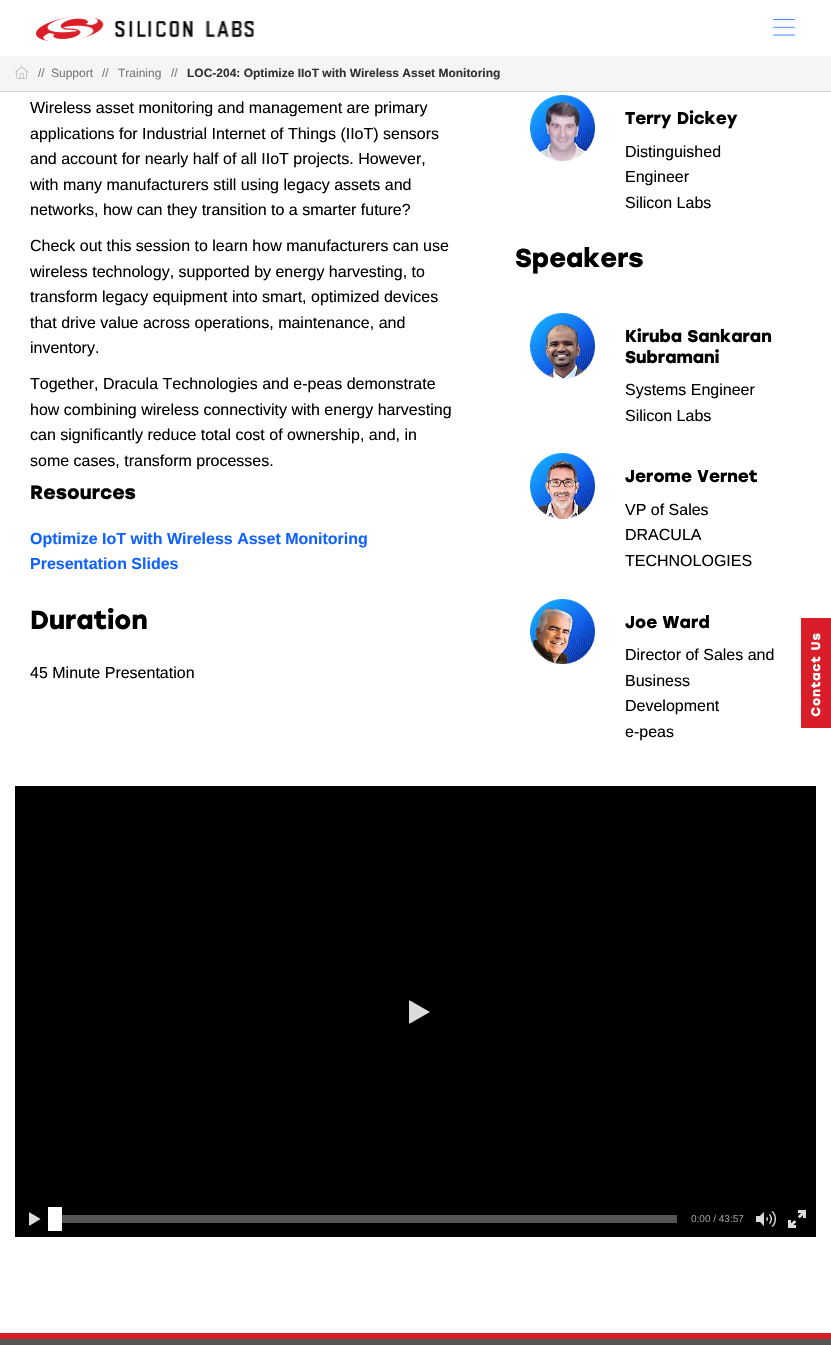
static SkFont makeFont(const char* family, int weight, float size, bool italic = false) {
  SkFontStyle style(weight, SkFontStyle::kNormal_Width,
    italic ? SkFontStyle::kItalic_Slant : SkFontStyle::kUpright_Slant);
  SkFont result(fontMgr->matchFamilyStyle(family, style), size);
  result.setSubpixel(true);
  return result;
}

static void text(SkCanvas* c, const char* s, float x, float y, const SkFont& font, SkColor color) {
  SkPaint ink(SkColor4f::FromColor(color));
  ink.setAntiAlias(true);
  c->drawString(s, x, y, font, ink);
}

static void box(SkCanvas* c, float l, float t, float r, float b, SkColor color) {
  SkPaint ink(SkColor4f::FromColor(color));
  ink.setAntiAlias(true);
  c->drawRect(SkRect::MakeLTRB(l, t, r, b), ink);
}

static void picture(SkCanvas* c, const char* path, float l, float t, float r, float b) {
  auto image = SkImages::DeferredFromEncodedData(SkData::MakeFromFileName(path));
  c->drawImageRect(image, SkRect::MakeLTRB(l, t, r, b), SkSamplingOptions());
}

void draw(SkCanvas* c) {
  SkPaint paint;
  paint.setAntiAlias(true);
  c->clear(0xffffffff);
  picture(c, "img_01.png", 36, 17, 254, 41);
  picture(c, "img_02.png", 773, 19, 795, 36);
  box(c, 0, 56, 831, 91, 0xfff5f5f5);
  box(c, 0, 91, 831, 92, 0xffd4d4d4);
  picture(c, "img_03.png", 15, 66, 29, 79);
  SkFont face1 = makeFont("Liberation Sans", 400, 12);
  text(c, "//", 38, 77, face1, 0xff777777);
  text(c, "Support", 51, 77, face1, 0xff777777);
  text(c, "//", 102, 77, face1, 0xff777777);
  text(c, "Training", 118, 77, face1, 0xff777777);
  text(c, "//", 171, 77, face1, 0xff777777);
  SkFont face2 = makeFont("Liberation Sans", 700, 12);
  text(c, "LOC-204: Optimize IIoT with Wireless Asset Monitoring", 187, 77, face2, 0xff303030);
  SkFont face3 = makeFont("Liberation Sans", 400, 16);
  text(c, "Wireless asset monitoring and management are primary", 30, 113, face3, 0xff000000);
  text(c, "applications for Industrial Internet of Things (IIoT) sensors", 30, 139, face3, 0xff000000);
  text(c, "and account for nearly half of all IIoT projects. However,", 30, 164, face3, 0xff000000);
  text(c, "with many manufacturers still using legacy assets and", 30, 190, face3, 0xff000000);
  text(c, "networks, how can they transition to a smarter future?", 30, 215, face3, 0xff000000);
  text(c, "Check out this session to learn how manufacturers can use", 30, 251, face3, 0xff000000);
  text(c, "wireless technology, supported by energy harvesting, to", 30, 277, face3, 0xff000000);
  text(c, "transform legacy equipment into smart, optimized devices", 30, 302, face3, 0xff000000);
  text(c, "that drive value across operations, maintenance, and", 30, 328, face3, 0xff000000);
  text(c, "inventory.", 30, 353, face3, 0xff000000);
  text(c, "Together, Dracula Technologies and e-peas demonstrate", 30, 389, face3, 0xff000000);
  text(c, "how combining wireless connectivity with energy harvesting", 30, 415, face3, 0xff000000);
  text(c, "can significantly reduce total cost of ownership, and, in", 30, 440, face3, 0xff000000);
  text(c, "some cases, transform processes.", 30, 466, face3, 0xff000000);
  SkFont face4 = makeFont("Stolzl", 700, 19.25f);
  text(c, "Resources", 30, 499, face4, 0xff000000);
  SkFont face5 = makeFont("Liberation Sans", 700, 16);
  text(c, "Optimize IoT with Wireless Asset Monitoring", 30, 544, face5, 0xff0f62fe);
  text(c, "Presentation Slides", 30, 569, face5, 0xff0f62fe);
  SkFont face6 = makeFont("Stolzl", 700, 26);
  text(c, "Duration", 30, 629, face6, 0xff000000);
  text(c, "45 Minute Presentation", 30, 678, face3, 0xff000000);
  picture(c, "img_04.png", 530, 95, 595, 161);
  SkFont face7 = makeFont("Stolzl", 700, 17);
  text(c, "Terry Dickey", 625, 124, face7, 0xff000000);
  text(c, "Distinguished", 625, 157, face3, 0xff000000);
  text(c, "Engineer", 625, 182, face3, 0xff000000);
  text(c, "Silicon Labs", 625, 208, face3, 0xff000000);
  text(c, "Speakers", 515, 267, face6, 0xff000000);
  picture(c, "img_05.png", 530, 313, 595, 379);
  text(c, "Kiruba Sankaran", 625, 342, face7, 0xff000000);
  text(c, "Subramani", 625, 363, face7, 0xff000000);
  text(c, "Systems Engineer", 625, 395, face3, 0xff000000);
  text(c, "Silicon Labs", 625, 421, face3, 0xff000000);
  picture(c, "img_06.png", 530, 453, 595, 519);
  text(c, "Jerome Vernet", 625, 482, face7, 0xff000000);
  text(c, "VP of Sales", 625, 515, face3, 0xff000000);
  text(c, "DRACULA", 625, 540, face3, 0xff000000);
  text(c, "TECHNOLOGIES", 625, 566, face3, 0xff000000);
  picture(c, "img_07.png", 530, 599, 595, 664);
  text(c, "Joe Ward", 625, 628, face7, 0xff000000);
  text(c, "Director of Sales and", 625, 660, face3, 0xff000000);
  text(c, "Business", 625, 686, face3, 0xff000000);
  text(c, "Development", 625, 711, face3, 0xff000000);
  text(c, "e-peas", 625, 737, face3, 0xff000000);
  box(c, 15, 786, 816, 1237, 0xff000000);
  picture(c, "img_08.png", 409, 1000, 430, 1024);
  picture(c, "img_09.png", 29, 1212, 41, 1226);
  box(c, 55, 1215, 677, 1223, 0xff545454);
  box(c, 48, 1207, 62, 1231, 0xffffffff);
  SkFont face8 = makeFont("Liberation Sans", 400, 10);
  text(c, "0:00 / 43:57", 691, 1222, face8, 0xff979797);
  picture(c, "img_10.png", 756, 1211, 776, 1227);
  picture(c, "img_11.png", 788, 1210, 806, 1228);
  box(c, 0, 1339, 831, 1345, 0xff555555);
  box(c, 0, 1333, 831, 1339, 0xffd91e2a);
  picture(c, "img_12.png", 801, 618, 831, 728);
}
